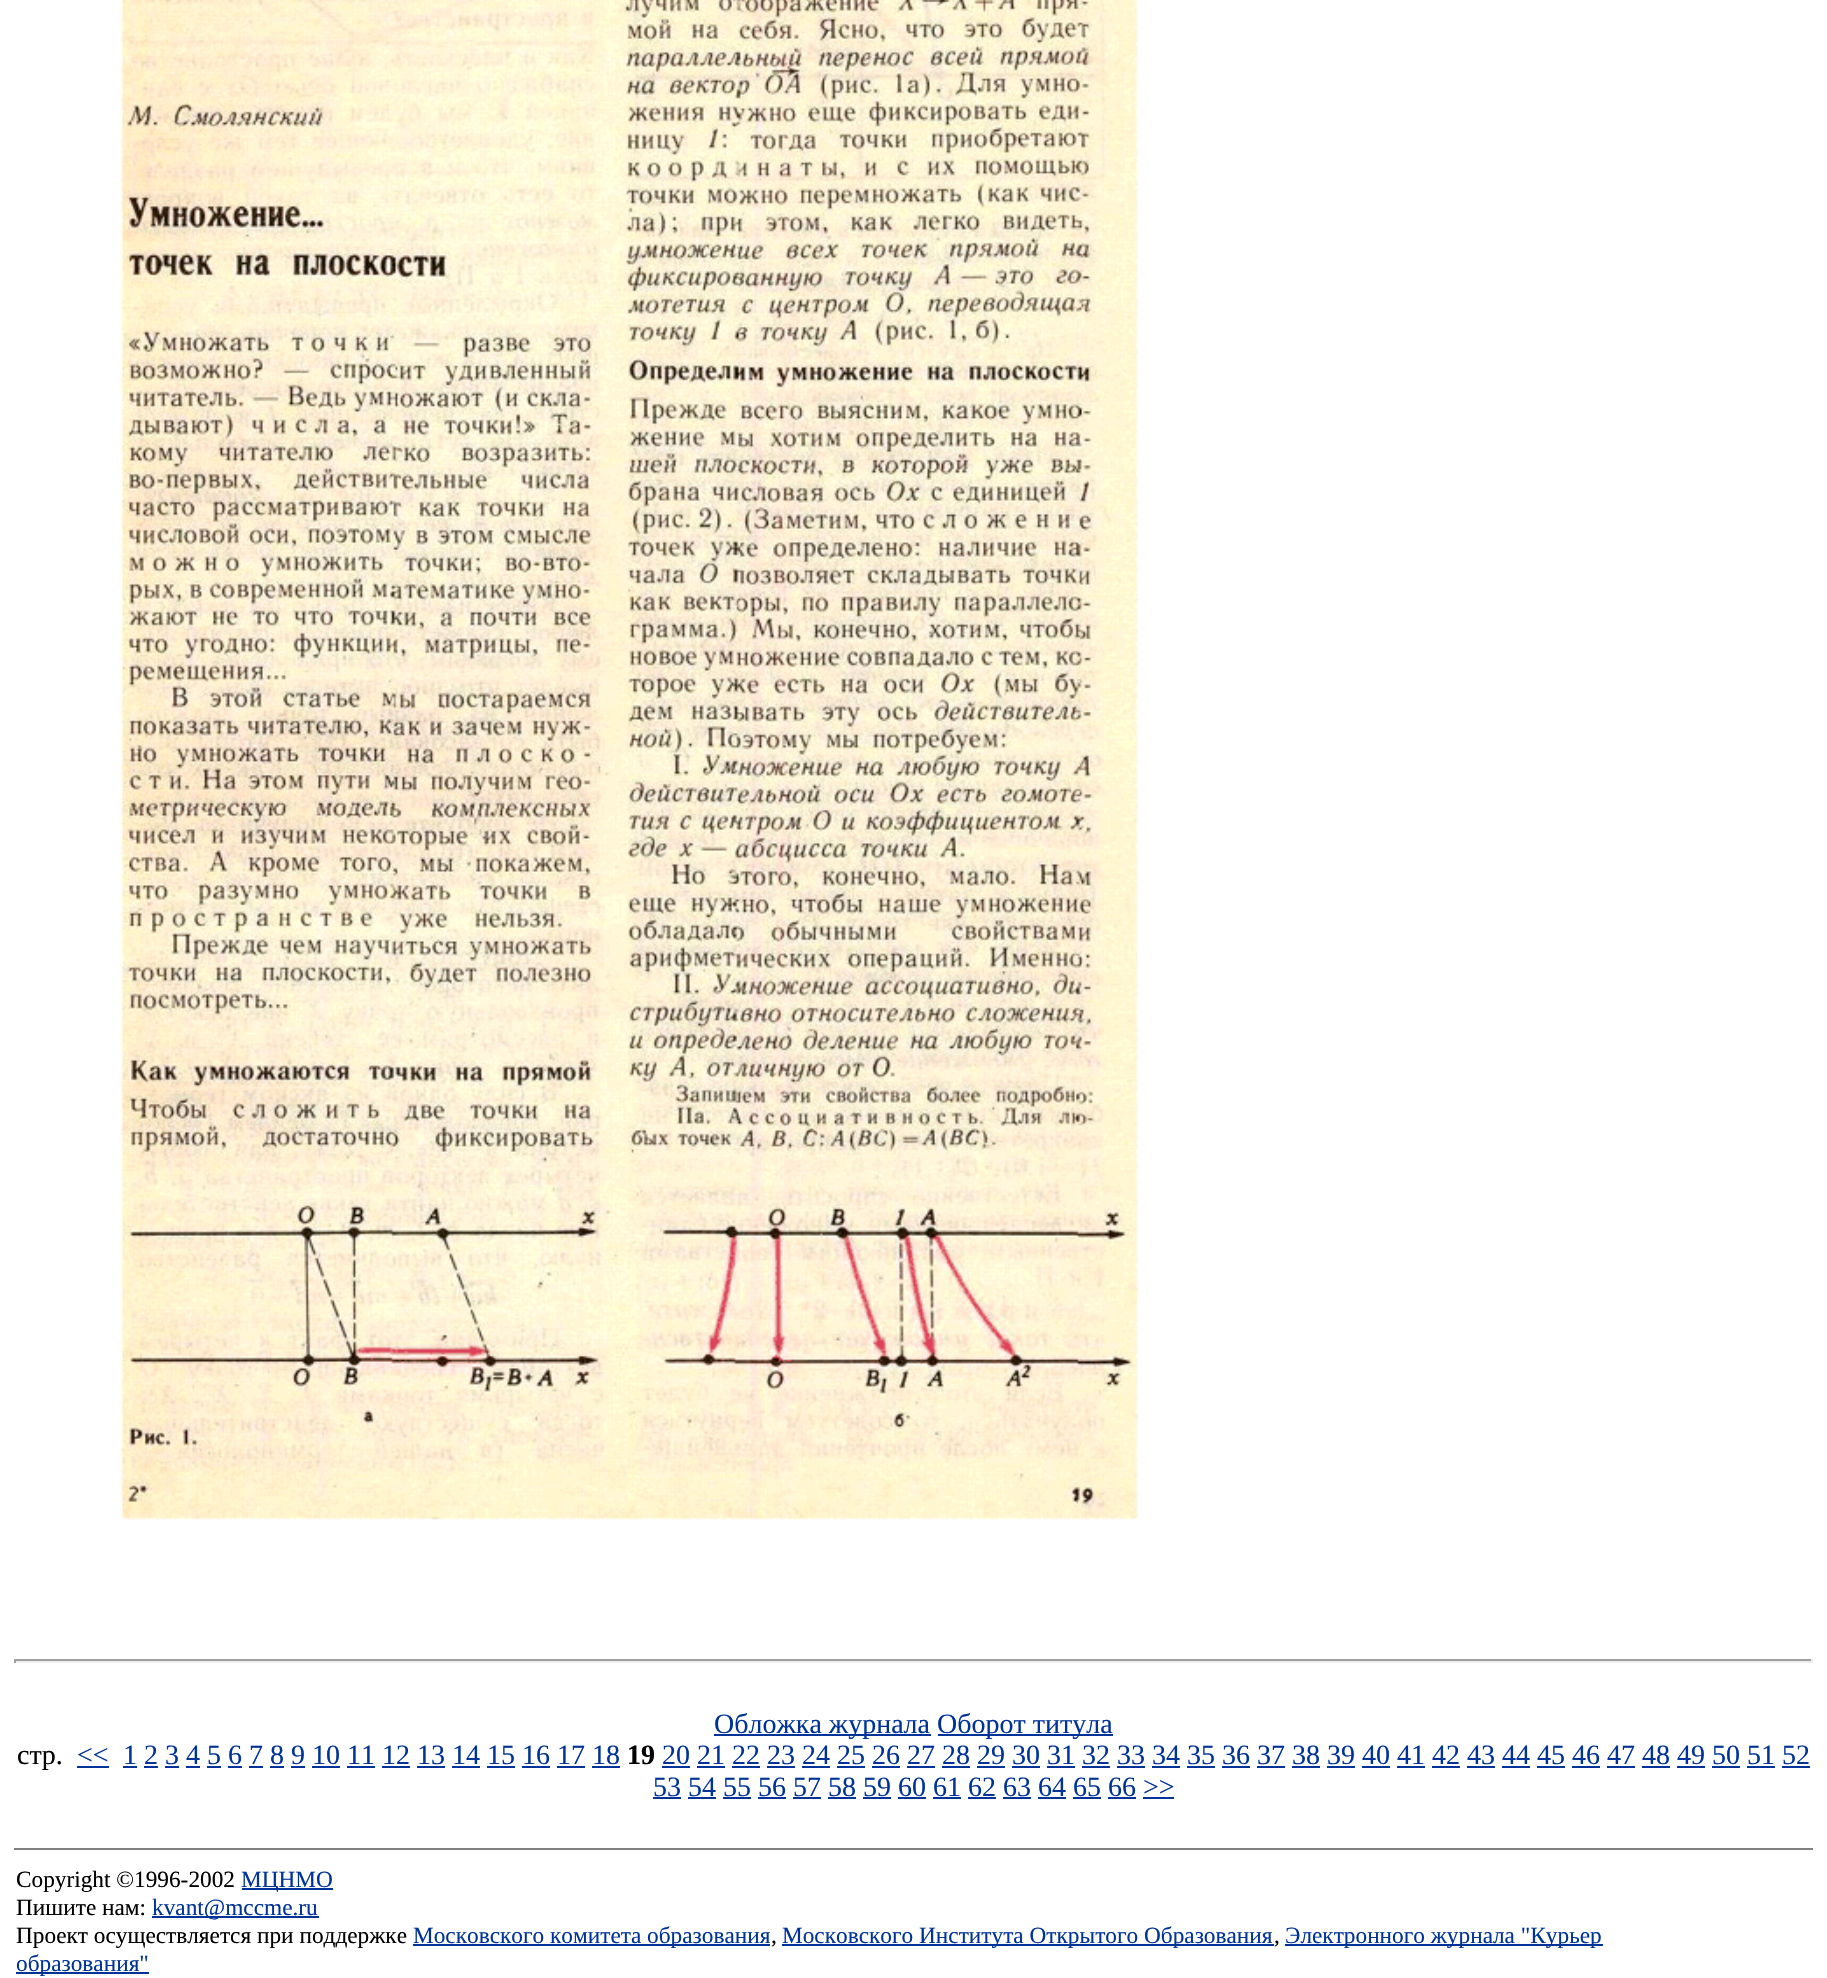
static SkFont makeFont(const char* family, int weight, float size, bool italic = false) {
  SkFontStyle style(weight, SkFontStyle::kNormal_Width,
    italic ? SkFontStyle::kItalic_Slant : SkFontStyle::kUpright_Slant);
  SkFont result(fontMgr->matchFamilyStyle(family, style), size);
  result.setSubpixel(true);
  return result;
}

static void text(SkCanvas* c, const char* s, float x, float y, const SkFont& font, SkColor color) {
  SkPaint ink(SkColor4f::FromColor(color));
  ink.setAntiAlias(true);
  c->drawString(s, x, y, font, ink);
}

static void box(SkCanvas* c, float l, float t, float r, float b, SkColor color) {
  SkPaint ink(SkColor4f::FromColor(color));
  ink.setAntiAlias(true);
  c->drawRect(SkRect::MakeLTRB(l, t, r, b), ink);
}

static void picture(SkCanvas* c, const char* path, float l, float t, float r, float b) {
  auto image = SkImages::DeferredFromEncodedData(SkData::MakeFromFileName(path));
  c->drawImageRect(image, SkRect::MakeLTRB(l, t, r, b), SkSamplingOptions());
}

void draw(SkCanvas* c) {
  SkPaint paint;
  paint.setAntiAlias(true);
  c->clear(0xffffffff);
  picture(c, "img_01.png", 114, 0, 1139, 1526);
  box(c, 14, 1659, 1813, 1661, 0xff9f9f9f);
  box(c, 1811, 1659, 1813, 1663, 0xffeeeeee);
  box(c, 14, 1661, 1813, 1663, 0xffeeeeee);
  box(c, 14, 1659, 16, 1663, 0xff9f9f9f);
  box(c, 714, 1734, 931, 1736, 0xff003399);
  SkFont face1 = makeFont("Liberation Serif", 400, 28);
  text(c, "Обложка журнала", 714, 1733, face1, 0xff003399);
  box(c, 938, 1734, 1113, 1736, 0xff003399);
  text(c, "Оборот титула", 937, 1733, face1, 0xff003399);
  text(c, "стp.", 17, 1764, face1, 0xff000000);
  text(c, "<<", 77, 1764, face1, 0xff003399);
  box(c, 77, 1766, 109, 1768, 0xff003399);
  text(c, "1 2 3 4 5 6 7 8 9 10 11 12 13 14 15 16 17 18", 123, 1764, face1, 0xff003399);
  box(c, 123, 1766, 137, 1768, 0xff003399);
  SkFont face2 = makeFont("Liberation Serif", 700, 28);
  text(c, "19", 627, 1764, face2, 0xff000000);
  text(c, "20 21 22 23 24 25 26 27 28 29 30 31 32 33 34 35 36 37 38 39 40 41 42 43 44 45 46 47 48 49 50 51 52", 662, 1764, face1, 0xff003399);
  box(c, 662, 1766, 690, 1768, 0xff003399);
  box(c, 144, 1766, 158, 1768, 0xff003399);
  box(c, 165, 1766, 179, 1768, 0xff003399);
  box(c, 186, 1766, 200, 1768, 0xff003399);
  box(c, 207, 1766, 221, 1768, 0xff003399);
  box(c, 228, 1766, 242, 1768, 0xff003399);
  box(c, 249, 1766, 263, 1768, 0xff003399);
  box(c, 270, 1766, 284, 1768, 0xff003399);
  box(c, 291, 1766, 305, 1768, 0xff003399);
  box(c, 312, 1766, 340, 1768, 0xff003399);
  box(c, 347, 1766, 375, 1768, 0xff003399);
  box(c, 382, 1766, 410, 1768, 0xff003399);
  box(c, 417, 1766, 445, 1768, 0xff003399);
  box(c, 452, 1766, 480, 1768, 0xff003399);
  box(c, 487, 1766, 515, 1768, 0xff003399);
  box(c, 522, 1766, 550, 1768, 0xff003399);
  box(c, 557, 1766, 585, 1768, 0xff003399);
  box(c, 592, 1766, 620, 1768, 0xff003399);
  box(c, 697, 1766, 725, 1768, 0xff003399);
  box(c, 732, 1766, 760, 1768, 0xff003399);
  box(c, 767, 1766, 795, 1768, 0xff003399);
  box(c, 802, 1766, 830, 1768, 0xff003399);
  box(c, 837, 1766, 865, 1768, 0xff003399);
  box(c, 872, 1766, 900, 1768, 0xff003399);
  box(c, 907, 1766, 935, 1768, 0xff003399);
  box(c, 942, 1766, 970, 1768, 0xff003399);
  box(c, 977, 1766, 1005, 1768, 0xff003399);
  box(c, 1012, 1766, 1040, 1768, 0xff003399);
  box(c, 1047, 1766, 1075, 1768, 0xff003399);
  box(c, 1082, 1766, 1110, 1768, 0xff003399);
  box(c, 1117, 1766, 1145, 1768, 0xff003399);
  box(c, 1152, 1766, 1180, 1768, 0xff003399);
  box(c, 1187, 1766, 1215, 1768, 0xff003399);
  box(c, 1222, 1766, 1250, 1768, 0xff003399);
  box(c, 1257, 1766, 1285, 1768, 0xff003399);
  box(c, 1292, 1766, 1320, 1768, 0xff003399);
  box(c, 1327, 1766, 1355, 1768, 0xff003399);
  box(c, 1362, 1766, 1390, 1768, 0xff003399);
  box(c, 1397, 1766, 1425, 1768, 0xff003399);
  box(c, 1432, 1766, 1460, 1768, 0xff003399);
  box(c, 1467, 1766, 1495, 1768, 0xff003399);
  box(c, 1502, 1766, 1530, 1768, 0xff003399);
  box(c, 1537, 1766, 1565, 1768, 0xff003399);
  box(c, 1572, 1766, 1600, 1768, 0xff003399);
  box(c, 1607, 1766, 1635, 1768, 0xff003399);
  box(c, 1642, 1766, 1670, 1768, 0xff003399);
  box(c, 1677, 1766, 1705, 1768, 0xff003399);
  box(c, 1712, 1766, 1740, 1768, 0xff003399);
  box(c, 1747, 1766, 1775, 1768, 0xff003399);
  box(c, 1782, 1766, 1810, 1768, 0xff003399);
  text(c, "53 54 55 56 57 58 59 60 61 62 63 64 65 66 >>", 653, 1796, face1, 0xff003399);
  box(c, 653, 1797, 681, 1799, 0xff003399);
  box(c, 688, 1797, 716, 1799, 0xff003399);
  box(c, 723, 1797, 751, 1799, 0xff003399);
  box(c, 758, 1797, 786, 1799, 0xff003399);
  box(c, 793, 1797, 821, 1799, 0xff003399);
  box(c, 828, 1797, 856, 1799, 0xff003399);
  box(c, 863, 1797, 891, 1799, 0xff003399);
  box(c, 898, 1797, 926, 1799, 0xff003399);
  box(c, 933, 1797, 961, 1799, 0xff003399);
  box(c, 968, 1797, 996, 1799, 0xff003399);
  box(c, 1003, 1797, 1031, 1799, 0xff003399);
  box(c, 1038, 1797, 1066, 1799, 0xff003399);
  box(c, 1073, 1797, 1101, 1799, 0xff003399);
  box(c, 1108, 1797, 1136, 1799, 0xff003399);
  box(c, 1143, 1797, 1174, 1799, 0xff003399);
  box(c, 14, 1848, 1813, 1850, 0xff808080);
  SkFont face3 = makeFont("Liberation Serif", 400, 23.3f);
  text(c, "Copyright ©1996-2002", 16, 1887, face3, 0xff000000);
  box(c, 242, 1888, 333, 1890, 0xff003399);
  text(c, "МЦНМО", 241, 1887, face3, 0xff003399);
  text(c, "Пишите нам:", 16, 1915, face3, 0xff000000);
  box(c, 152, 1916, 319, 1918, 0xff003399);
  text(c, "kvant@mccme.ru", 152, 1915, face3, 0xff003399);
  text(c, "Проект осуществляется при поддержке", 16, 1943, face3, 0xff000000);
  box(c, 413, 1944, 770, 1946, 0xff003399);
  text(c, "Московского комитета образования", 413, 1943, face3, 0xff003399);
  text(c, ",", 771, 1943, face3, 0xff000000);
  box(c, 782, 1944, 1274, 1946, 0xff003399);
  text(c, "Московского Института Открытого Образования", 782, 1943, face3, 0xff003399);
  text(c, ",", 1274, 1943, face3, 0xff000000);
  box(c, 1285, 1944, 1603, 1946, 0xff003399);
  text(c, "Электронного журнала \"Курьер", 1285, 1943, face3, 0xff003399);
  box(c, 16, 1972, 149, 1974, 0xff003399);
  text(c, "образования\"", 16, 1971, face3, 0xff003399);
}
